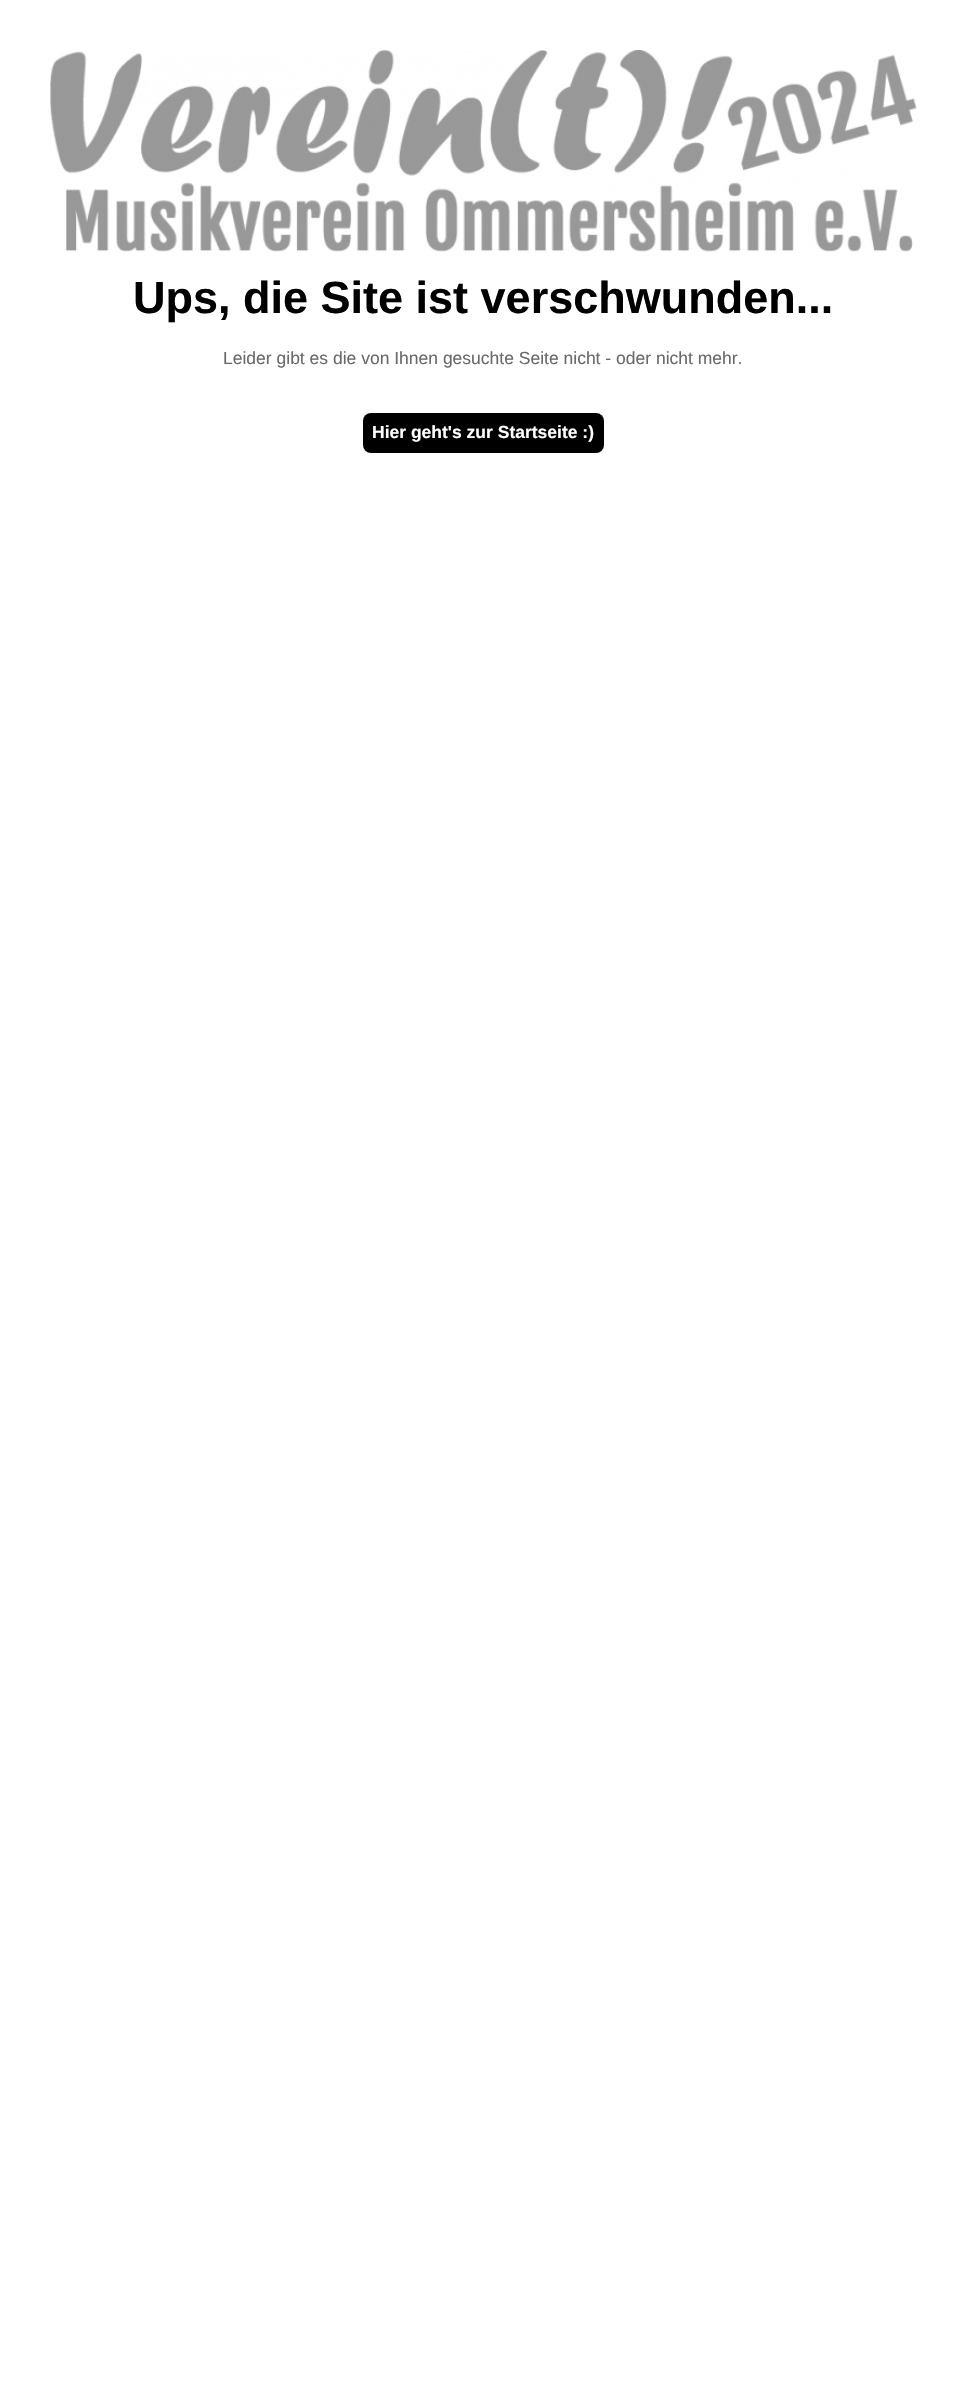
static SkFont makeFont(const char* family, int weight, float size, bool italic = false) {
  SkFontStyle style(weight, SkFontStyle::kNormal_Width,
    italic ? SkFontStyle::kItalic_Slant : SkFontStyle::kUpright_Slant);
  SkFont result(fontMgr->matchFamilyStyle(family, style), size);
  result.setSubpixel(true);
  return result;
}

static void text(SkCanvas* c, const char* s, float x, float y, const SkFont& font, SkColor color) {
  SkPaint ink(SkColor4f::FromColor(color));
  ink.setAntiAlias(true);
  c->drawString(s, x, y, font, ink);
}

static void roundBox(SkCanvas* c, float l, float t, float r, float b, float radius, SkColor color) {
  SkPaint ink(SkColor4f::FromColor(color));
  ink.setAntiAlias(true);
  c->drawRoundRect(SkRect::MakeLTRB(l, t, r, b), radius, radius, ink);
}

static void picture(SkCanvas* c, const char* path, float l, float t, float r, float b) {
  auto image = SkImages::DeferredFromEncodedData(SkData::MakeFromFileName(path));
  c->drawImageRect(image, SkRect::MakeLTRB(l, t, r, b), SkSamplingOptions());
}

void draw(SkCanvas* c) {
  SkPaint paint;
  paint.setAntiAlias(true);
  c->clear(0xffffffff);
  picture(c, "img_01.png", 50, 50, 917, 252);
  SkFont face1 = makeFont("Liberation Sans", 700, 45);
  text(c, "Ups, die Site ist verschwunden...", 133, 313, face1, 0xff000000);
  SkFont face2 = makeFont("Liberation Sans", 400, 17.5f);
  text(c, "Leider gibt es die von Ihnen gesuchte Seite nicht - oder nicht mehr.", 223, 364, face2, 0xff696969);
  roundBox(c, 363, 413, 604, 453, 8, 0xff000000);
  SkFont face3 = makeFont("Liberation Sans", 700, 17.5f);
  text(c, "Hier geht's zur Startseite :)", 372, 438, face3, 0xffffffff);
}
